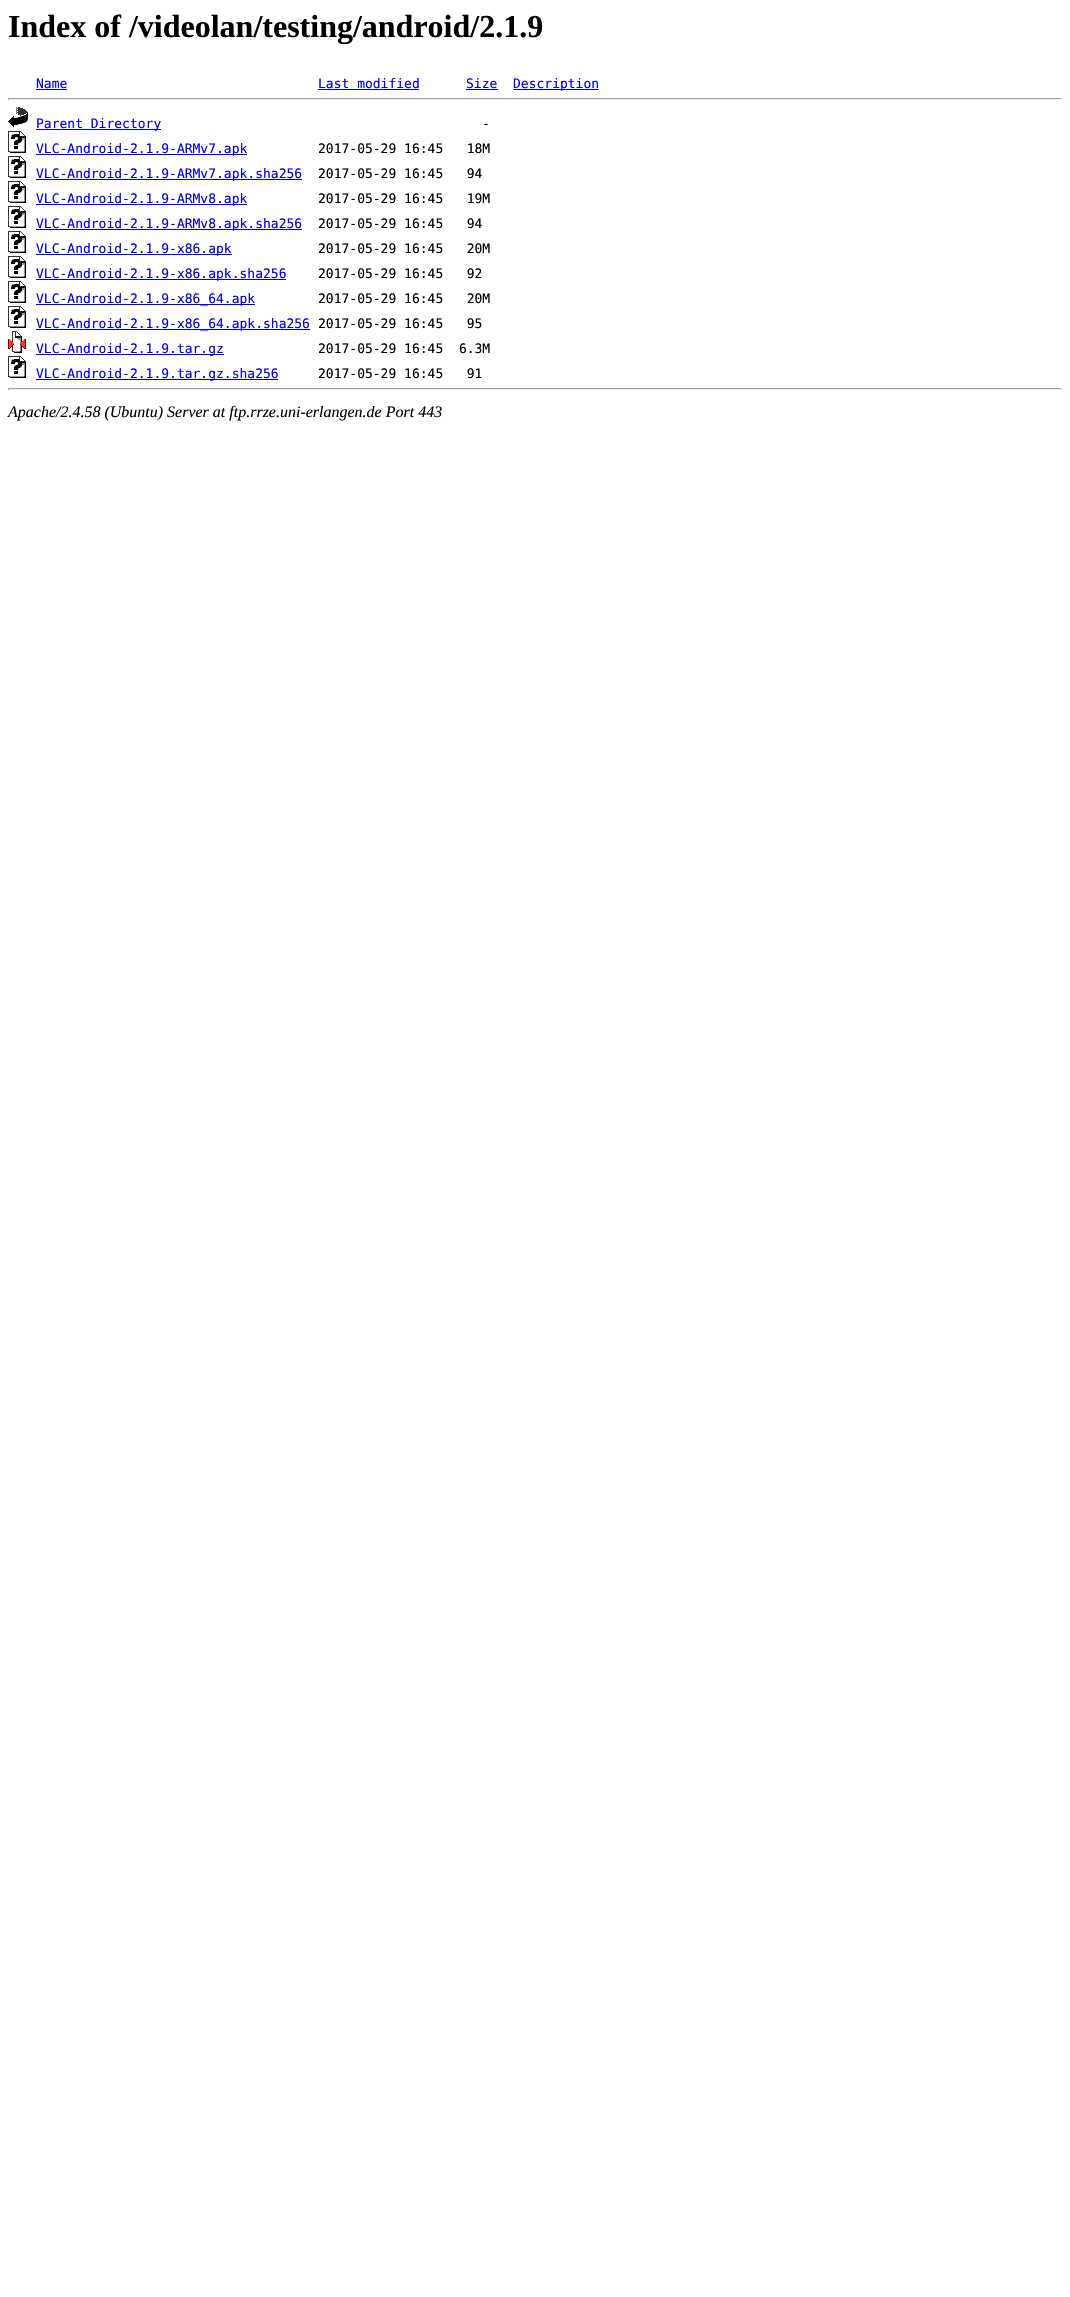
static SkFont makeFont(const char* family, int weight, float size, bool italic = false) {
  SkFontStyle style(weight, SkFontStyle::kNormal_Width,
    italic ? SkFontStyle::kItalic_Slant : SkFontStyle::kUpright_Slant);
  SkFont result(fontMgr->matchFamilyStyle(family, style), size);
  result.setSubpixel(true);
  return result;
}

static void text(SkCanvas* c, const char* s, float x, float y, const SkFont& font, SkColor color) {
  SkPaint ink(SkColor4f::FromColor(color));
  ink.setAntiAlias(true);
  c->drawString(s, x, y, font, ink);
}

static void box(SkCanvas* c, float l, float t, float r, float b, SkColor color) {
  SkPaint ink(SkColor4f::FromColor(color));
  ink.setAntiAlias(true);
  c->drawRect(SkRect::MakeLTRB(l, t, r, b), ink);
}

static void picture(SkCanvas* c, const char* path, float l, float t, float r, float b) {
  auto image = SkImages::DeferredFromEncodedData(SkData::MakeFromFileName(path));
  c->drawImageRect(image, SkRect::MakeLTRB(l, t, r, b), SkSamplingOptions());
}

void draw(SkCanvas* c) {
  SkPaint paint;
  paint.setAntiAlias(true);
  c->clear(0xffffffff);
  SkFont face1 = makeFont("Liberation Serif", 700, 32);
  text(c, "Index of /videolan/testing/android/2.1.9", 8, 37, face1, 0xff000000);
  SkFont face2 = makeFont("DejaVu Sans Mono", 400, 13);
  text(c, "Name", 36, 88, face2, 0xff0000ee);
  box(c, 36, 89, 67, 90, 0xff0000ee);
  text(c, "Last modified", 318, 88, face2, 0xff0000ee);
  box(c, 318, 89, 419, 90, 0xff0000ee);
  text(c, "Size", 466, 88, face2, 0xff0000ee);
  box(c, 466, 89, 498, 90, 0xff0000ee);
  box(c, 513, 89, 599, 90, 0xff0000ee);
  text(c, "Description", 513, 88, face2, 0xff0000ee);
  box(c, 8, 98, 1062, 99, 0xff9f9f9f);
  box(c, 1061, 98, 1062, 100, 0xffeeeeee);
  box(c, 8, 99, 1062, 100, 0xffeeeeee);
  box(c, 8, 98, 9, 100, 0xff9f9f9f);
  picture(c, "img_01.png", 8, 107, 28, 127);
  box(c, 36, 129, 161, 130, 0xff0000ee);
  text(c, "Parent Directory", 36, 128, face2, 0xff0000ee);
  text(c, "-", 482, 128, face2, 0xff000000);
  picture(c, "img_02.png", 8, 131, 26, 153);
  box(c, 36, 154, 247, 155, 0xff0000ee);
  text(c, "VLC-Android-2.1.9-ARMv7.apk", 36, 153, face2, 0xff0000ee);
  text(c, "2017-05-29 16:45   18M", 318, 153, face2, 0xff000000);
  picture(c, "img_02.png", 8, 156, 26, 178);
  box(c, 36, 179, 302, 180, 0xff0000ee);
  text(c, "VLC-Android-2.1.9-ARMv7.apk.sha256", 36, 178, face2, 0xff0000ee);
  text(c, "2017-05-29 16:45   94", 318, 178, face2, 0xff000000);
  picture(c, "img_02.png", 8, 181, 26, 203);
  box(c, 36, 204, 247, 205, 0xff0000ee);
  text(c, "VLC-Android-2.1.9-ARMv8.apk", 36, 203, face2, 0xff0000ee);
  text(c, "2017-05-29 16:45   19M", 318, 203, face2, 0xff000000);
  picture(c, "img_02.png", 8, 206, 26, 228);
  box(c, 36, 229, 302, 230, 0xff0000ee);
  text(c, "VLC-Android-2.1.9-ARMv8.apk.sha256", 36, 228, face2, 0xff0000ee);
  text(c, "2017-05-29 16:45   94", 318, 228, face2, 0xff000000);
  picture(c, "img_02.png", 8, 231, 26, 253);
  box(c, 36, 254, 232, 255, 0xff0000ee);
  text(c, "VLC-Android-2.1.9-x86.apk", 36, 253, face2, 0xff0000ee);
  text(c, "2017-05-29 16:45   20M", 318, 253, face2, 0xff000000);
  picture(c, "img_02.png", 8, 256, 26, 278);
  box(c, 36, 279, 286, 280, 0xff0000ee);
  text(c, "VLC-Android-2.1.9-x86.apk.sha256", 36, 278, face2, 0xff0000ee);
  text(c, "2017-05-29 16:45   92", 318, 278, face2, 0xff000000);
  picture(c, "img_02.png", 8, 281, 26, 303);
  box(c, 36, 304, 255, 305, 0xff0000ee);
  text(c, "VLC-Android-2.1.9-x86_64.apk", 36, 303, face2, 0xff0000ee);
  text(c, "2017-05-29 16:45   20M", 318, 303, face2, 0xff000000);
  picture(c, "img_02.png", 8, 306, 26, 328);
  box(c, 36, 329, 310, 330, 0xff0000ee);
  text(c, "VLC-Android-2.1.9-x86_64.apk.sha256", 36, 328, face2, 0xff0000ee);
  text(c, "2017-05-29 16:45   95", 318, 328, face2, 0xff000000);
  picture(c, "img_03.png", 8, 331, 26, 353);
  box(c, 36, 354, 224, 355, 0xff0000ee);
  text(c, "VLC-Android-2.1.9.tar.gz", 36, 353, face2, 0xff0000ee);
  text(c, "2017-05-29 16:45  6.3M", 318, 353, face2, 0xff000000);
  picture(c, "img_02.png", 8, 356, 26, 378);
  box(c, 36, 379, 278, 380, 0xff0000ee);
  text(c, "VLC-Android-2.1.9.tar.gz.sha256", 36, 378, face2, 0xff0000ee);
  text(c, "2017-05-29 16:45   91", 318, 378, face2, 0xff000000);
  box(c, 8, 388, 1062, 389, 0xff9f9f9f);
  box(c, 1061, 388, 1062, 390, 0xffeeeeee);
  box(c, 8, 389, 1062, 390, 0xffeeeeee);
  box(c, 8, 388, 9, 390, 0xff9f9f9f);
  SkFont face3 = makeFont("Liberation Serif", 400, 16, true);
  text(c, "Apache/2.4.58 (Ubuntu) Server at ftp.rrze.uni-erlangen.de Port 443", 8, 417, face3, 0xff000000);
}
